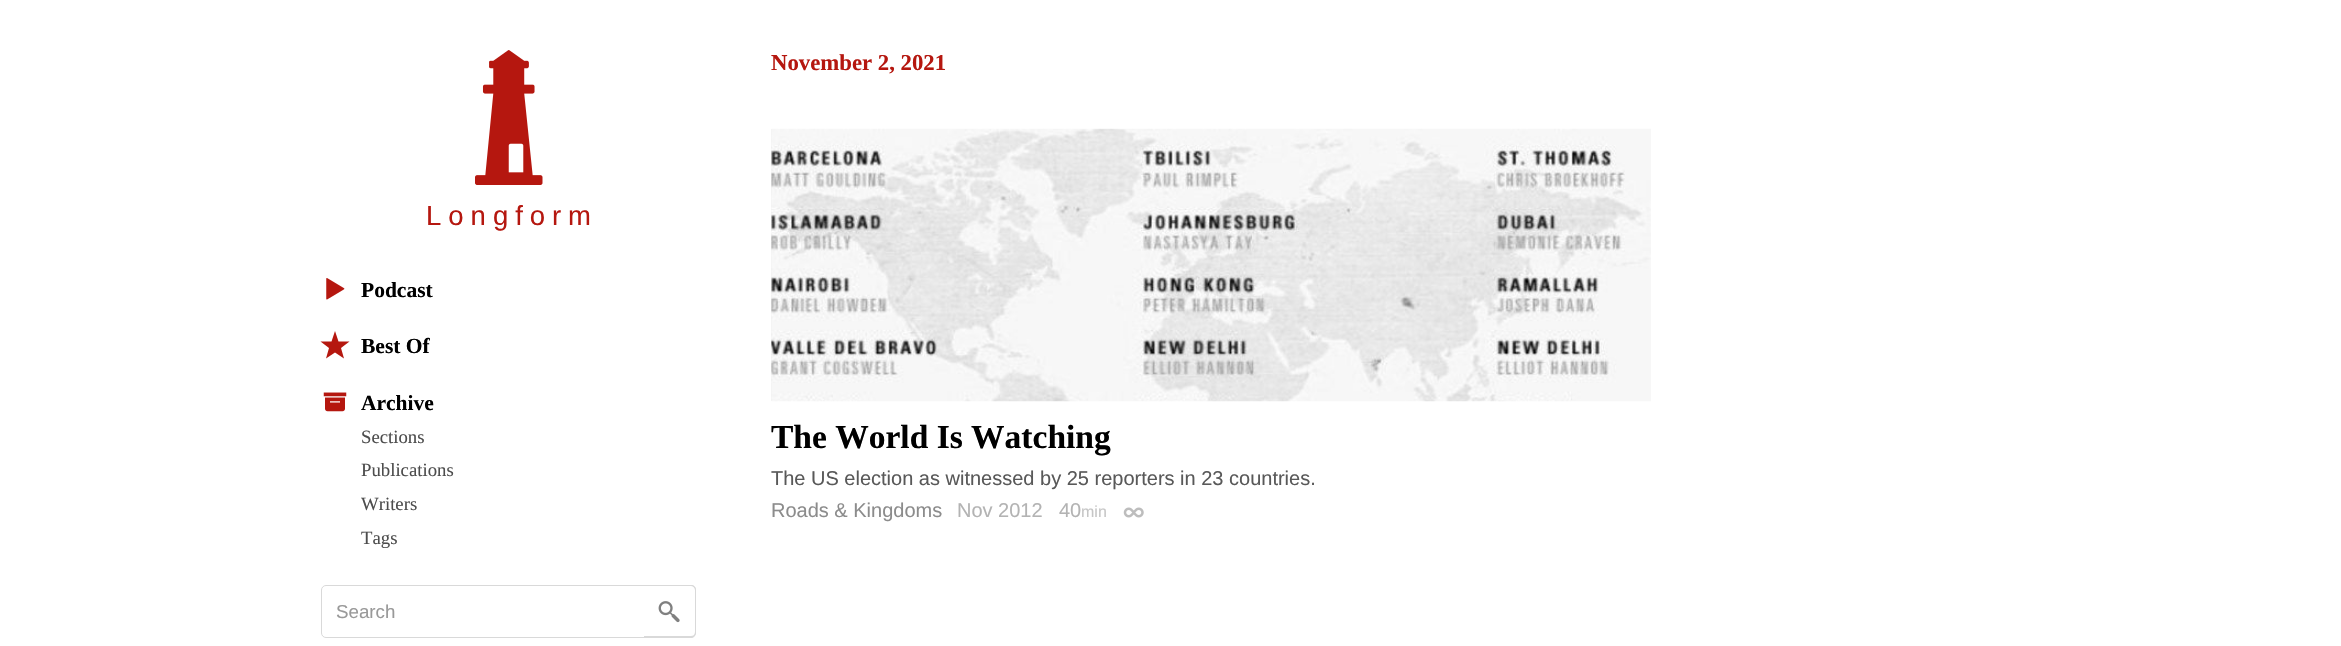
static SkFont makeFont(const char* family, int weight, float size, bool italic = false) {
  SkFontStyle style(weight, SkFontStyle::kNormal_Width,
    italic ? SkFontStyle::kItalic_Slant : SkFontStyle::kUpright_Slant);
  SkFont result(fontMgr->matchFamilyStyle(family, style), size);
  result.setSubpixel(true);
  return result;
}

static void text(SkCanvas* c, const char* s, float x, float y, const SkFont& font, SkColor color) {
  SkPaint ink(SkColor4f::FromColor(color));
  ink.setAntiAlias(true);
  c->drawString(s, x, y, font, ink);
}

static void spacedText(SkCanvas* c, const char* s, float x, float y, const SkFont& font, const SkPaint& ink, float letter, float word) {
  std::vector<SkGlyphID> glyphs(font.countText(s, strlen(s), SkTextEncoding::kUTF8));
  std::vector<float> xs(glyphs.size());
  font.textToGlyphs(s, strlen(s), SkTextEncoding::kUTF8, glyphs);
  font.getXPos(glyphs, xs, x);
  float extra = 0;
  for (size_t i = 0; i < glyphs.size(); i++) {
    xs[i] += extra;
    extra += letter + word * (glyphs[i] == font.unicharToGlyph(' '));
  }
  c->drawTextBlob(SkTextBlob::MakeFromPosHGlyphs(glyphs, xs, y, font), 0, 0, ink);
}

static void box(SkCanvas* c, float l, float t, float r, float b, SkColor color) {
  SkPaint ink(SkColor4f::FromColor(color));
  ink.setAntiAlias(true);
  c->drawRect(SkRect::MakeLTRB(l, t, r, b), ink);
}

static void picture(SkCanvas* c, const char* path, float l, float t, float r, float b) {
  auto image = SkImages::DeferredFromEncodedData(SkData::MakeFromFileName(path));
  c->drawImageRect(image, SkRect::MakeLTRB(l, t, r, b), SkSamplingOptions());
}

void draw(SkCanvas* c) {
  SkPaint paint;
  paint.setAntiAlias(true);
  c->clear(0xffffffff);
  picture(c, "img_01.png", 475, 50, 543, 185);
  SkFont face1 = makeFont("Liberation Sans", 400, 27.5f);
  paint.setColor(0xffb5170f);
  spacedText(c, "Longfor", 426, 225, face1, paint, 7, 0);
  text(c, "m", 568, 225, face1, 0xffb5170f);
  picture(c, "img_02.png", 326, 278, 345, 300);
  SkFont face2 = makeFont("Liberation Serif", 700, 21.5f);
  text(c, "Podcast", 361, 297, face2, 0xff000000);
  c->drawPath(SkPathBuilder(SkPathFillType::kEvenOdd).moveTo(335, 352.5f).lineTo(326, 358.5f).lineTo(329, 348).lineTo(320.5f, 341.5f).lineTo(331.5f, 341.5f).lineTo(335, 331).lineTo(338.5f, 341.5f).lineTo(349.5f, 341.5f).lineTo(341, 348).lineTo(344, 358.5f).close().detach(), paint);
  text(c, "Best Of", 361, 353, face2, 0xff000000);
  picture(c, "img_03.png", 323, 392, 347, 412);
  text(c, "Archive", 361, 410, face2, 0xff000000);
  SkFont face3 = makeFont("Liberation Serif", 400, 18.75f);
  text(c, "Sections", 361, 443, face3, 0xff4d4d4d);
  text(c, "Publications", 361, 476, face3, 0xff4d4d4d);
  text(c, "Writers", 361, 510, face3, 0xff4d4d4d);
  text(c, "Tags", 361, 544, face3, 0xff4d4d4d);
  paint.setStyle(SkPaint::kStroke_Style);
  paint.setStrokeWidth(1);
  paint.setColor(0xffd9d9d9);
  c->drawRoundRect(SkRect::MakeLTRB(321.5f, 585.5f, 695.5f, 637.5f), 4.5f, 4.5f, paint);
  SkFont face4 = makeFont("Liberation Sans", 400, 18.75f);
  text(c, "Search", 336, 618, face4, 0xff999999);
  paint.setStyle(SkPaint::kFill_Style);
  paint.setColor(0xffffffff);
  c->drawPath(SkPathBuilder().moveTo(644, 586).lineTo(691, 586).cubicTo(693, 586, 695, 588, 695, 590).lineTo(695, 632).cubicTo(695, 634, 693, 636, 691, 636).lineTo(644, 636).close().detach(), paint);
  picture(c, "img_04.png", 658, 601, 680, 623);
  paint.setColor(0xffd9d9d9);
  c->drawPath(SkPathBuilder(SkPathFillType::kEvenOdd).moveTo(644, 585).lineTo(691, 585).cubicTo(694, 585, 696, 587, 696, 590).lineTo(696, 632).cubicTo(696, 635, 694, 638, 691, 638).lineTo(644, 638).close().moveTo(644, 586).lineTo(691, 586).cubicTo(693, 586, 695, 588, 695, 590).lineTo(695, 632).cubicTo(695, 635, 693, 636, 691, 636).lineTo(644, 636).close().detach(), paint);
  SkFont face5 = makeFont("Liberation Serif", 700, 22.75f);
  text(c, "November 2, 2021", 771, 70, face5, 0xffb5170f);
  box(c, 771, 129, 772, 401, 0xfff2f2f2);
  picture(c, "img_05.png", 771, 128, 1651, 402);
  SkFont face6 = makeFont("Liberation Serif", 700, 33.5f);
  text(c, "The World Is Watching", 771, 448, face6, 0xff000000);
  SkFont face7 = makeFont("Liberation Sans", 400, 20);
  text(c, "The US election as witnessed by 25 reporters in 23 countries.", 771, 485, face7, 0xff595959);
  text(c, "Roads & Kingdoms", 771, 517, face7, 0xff8c8c8c);
  text(c, "Nov 2012", 957, 517, face7, 0xffb3b3b3);
  text(c, "40", 1059, 517, face7, 0xffb3b3b3);
  SkFont face8 = makeFont("Liberation Sans", 400, 16);
  text(c, "min", 1081, 517, face8, 0xffc6c6c6);
  picture(c, "img_06.png", 1123, 507, 1144, 518);
}
